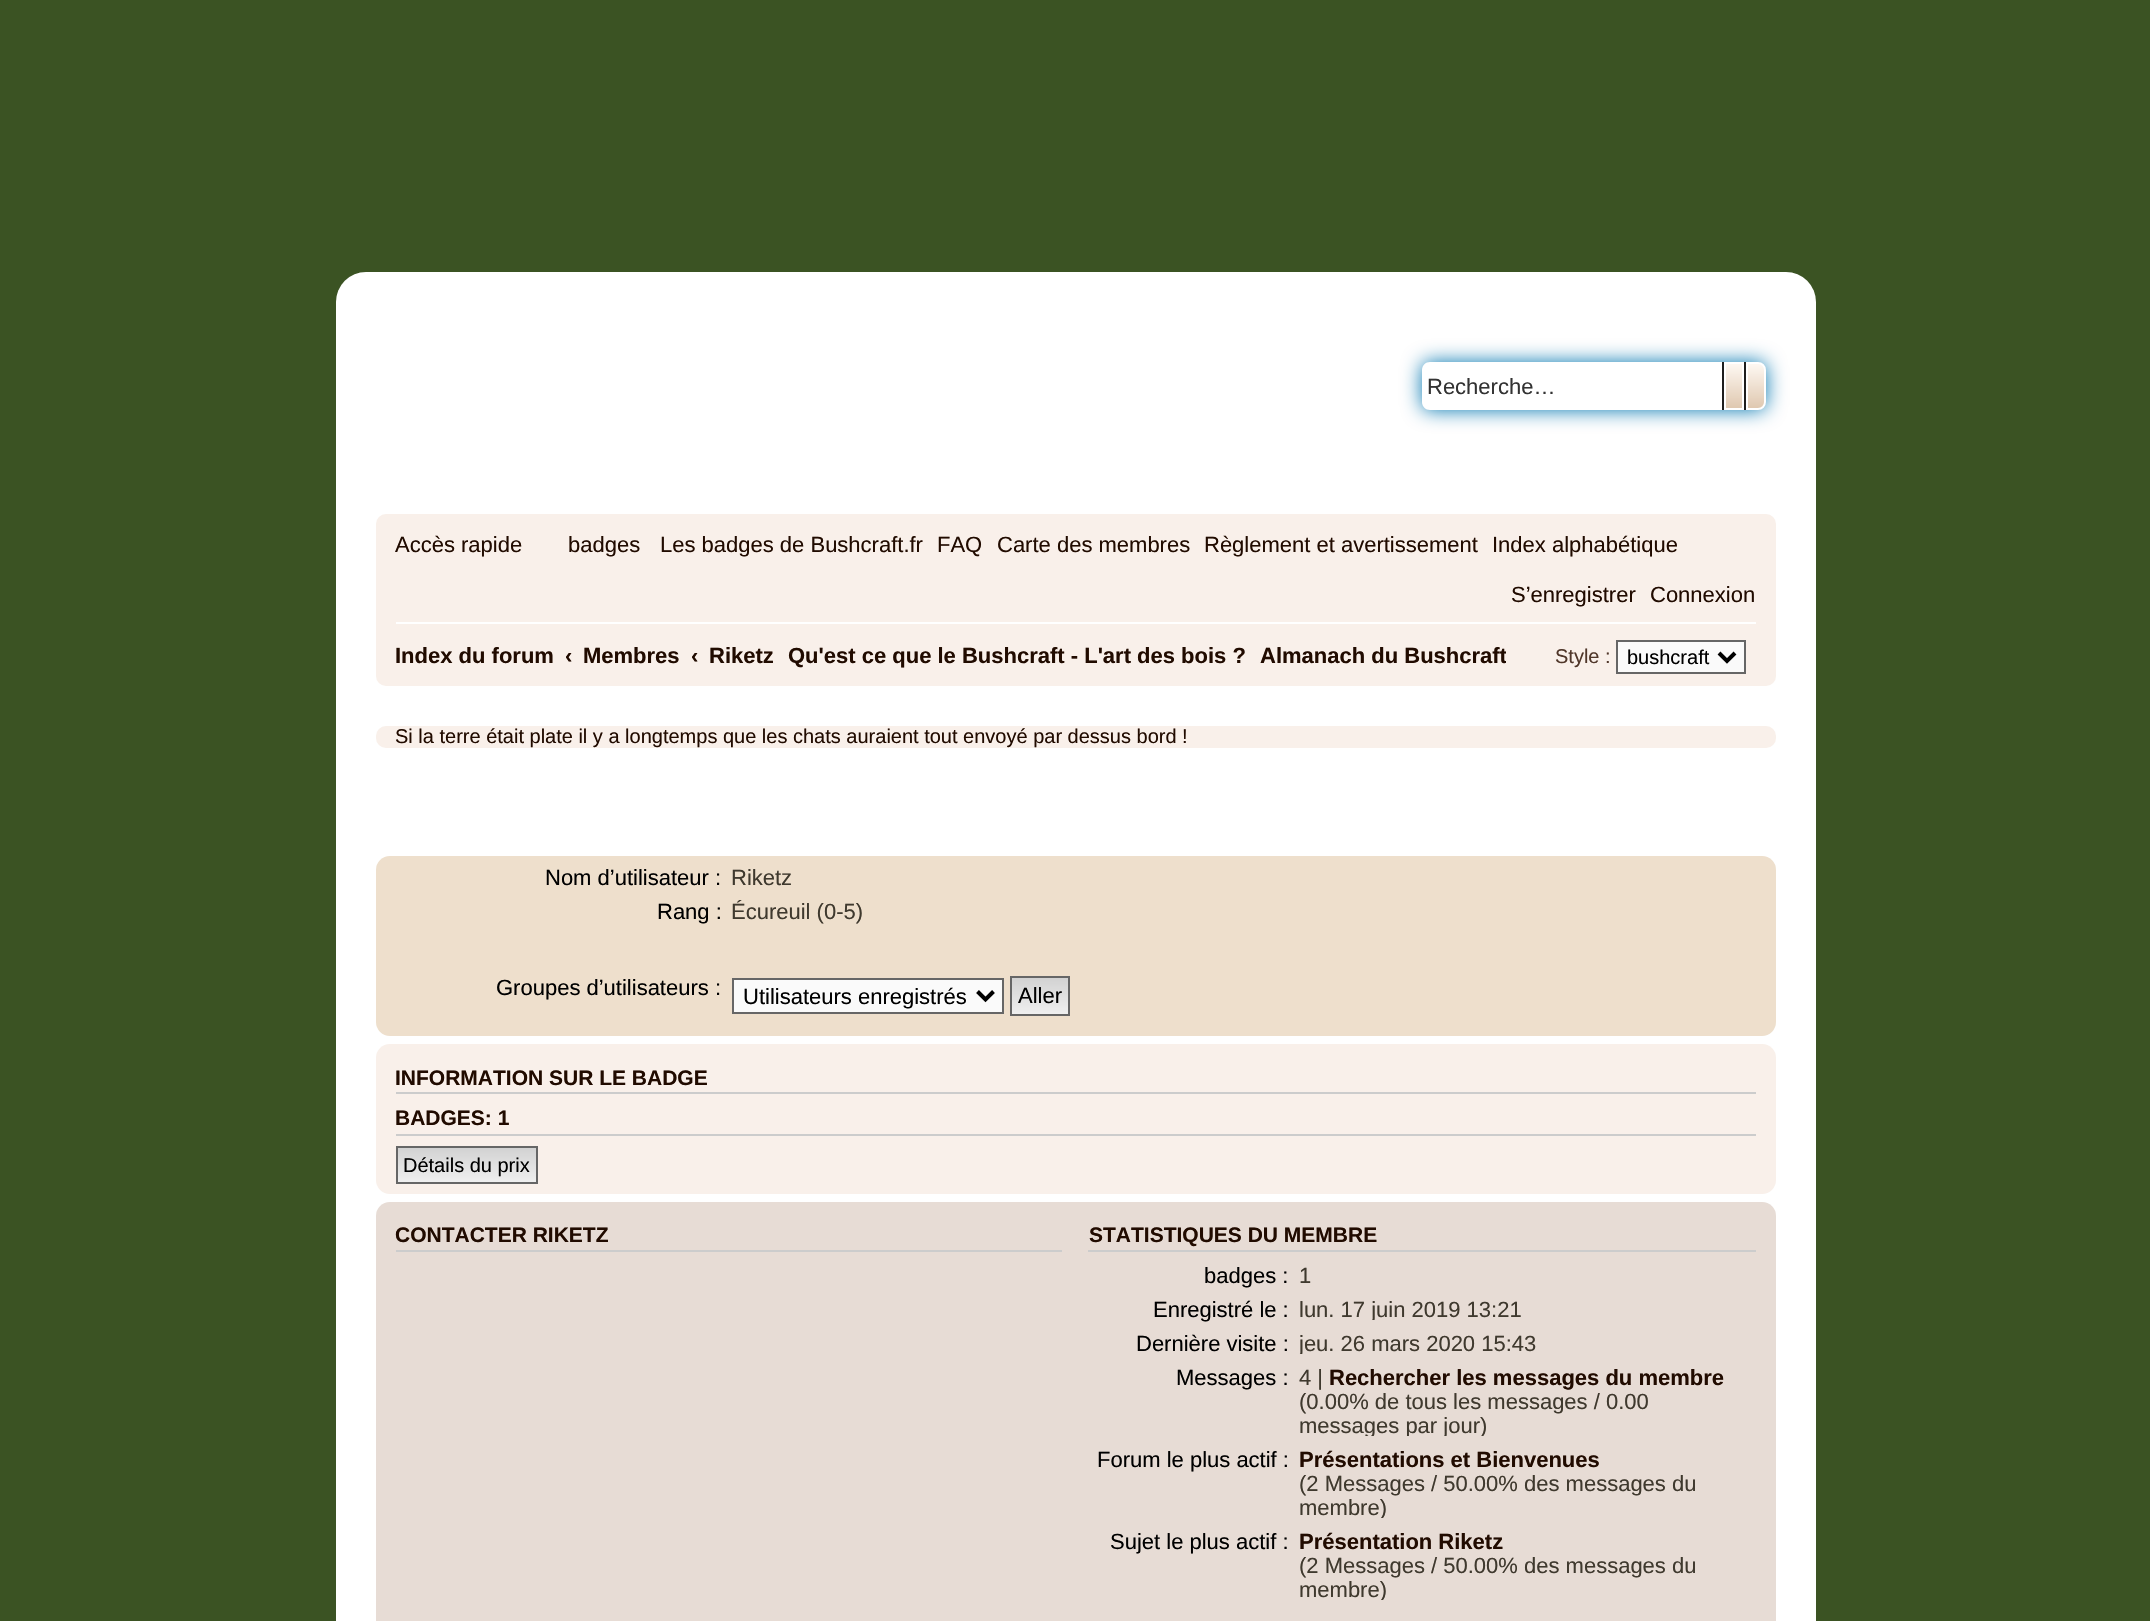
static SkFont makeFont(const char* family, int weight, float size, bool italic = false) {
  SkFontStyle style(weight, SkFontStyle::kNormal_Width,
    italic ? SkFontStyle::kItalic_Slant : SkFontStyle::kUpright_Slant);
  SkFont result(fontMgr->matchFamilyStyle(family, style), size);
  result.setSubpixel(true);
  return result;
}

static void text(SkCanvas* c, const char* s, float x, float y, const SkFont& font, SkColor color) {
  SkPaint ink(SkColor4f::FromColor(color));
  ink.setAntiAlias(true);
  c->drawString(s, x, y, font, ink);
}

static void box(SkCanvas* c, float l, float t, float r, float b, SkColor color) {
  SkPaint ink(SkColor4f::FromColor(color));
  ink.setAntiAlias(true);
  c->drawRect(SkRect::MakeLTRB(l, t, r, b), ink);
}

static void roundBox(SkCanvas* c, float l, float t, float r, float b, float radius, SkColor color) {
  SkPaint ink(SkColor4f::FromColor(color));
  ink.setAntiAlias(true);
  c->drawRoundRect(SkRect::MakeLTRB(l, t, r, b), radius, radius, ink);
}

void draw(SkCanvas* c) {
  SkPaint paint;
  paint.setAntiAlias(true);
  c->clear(0xff3b5323);
  roundBox(c, 336, 272, 1816, 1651, 30, 0xffffffff);
  paint.setColor(0xff0075b0);
  paint.setMaskFilter(SkMaskFilter::MakeBlur(kNormal_SkBlurStyle, 10));
  c->drawRoundRect(SkRect::MakeLTRB(1422, 362, 1766, 410), 8, 8, paint);
  paint.setMaskFilter(nullptr);
  paint.setColor(0xffffffff);
  c->drawPath(SkPathBuilder().moveTo(1430, 362).lineTo(1722, 362).lineTo(1722, 410).lineTo(1430, 410).cubicTo(1425.5f, 410, 1422, 406.5f, 1422, 402).lineTo(1422, 370).cubicTo(1422, 365.5f, 1425.5f, 362, 1430, 362).close().detach(), paint);
  SkFont face1 = makeFont("Liberation Sans", 400, 22);
  text(c, "Recherche…", 1427, 394, face1, 0xff333333);
  {
    const SkColor colors[] = {0xfffffaf5, 0xffdec6ad};
    const float stops[] = {0, 1};
    const SkPoint ends[] = {{1734, 362}, {1734, 410}};
    paint.setShader(SkGradientShader::MakeLinear(ends, colors, stops, 2, SkTileMode::kClamp));
    paint.setAlpha(255);
  }
  c->drawRect(SkRect::MakeLTRB(1726, 364, 1742, 408), paint);
  paint.setStyle(SkPaint::kStroke_Style);
  paint.setStrokeWidth(2);
  paint.setShader(nullptr);
  paint.setColor(0xffffffff);
  c->drawRect(SkRect::MakeLTRB(1725, 363, 1743, 409), paint);
  box(c, 1744, 362, 1746, 410, 0xff1e1e1e);
  box(c, 1722, 362, 1724, 410, 0xff1e1e1e);
  paint.setStyle(SkPaint::kFill_Style);
  {
    const SkColor colors[] = {0xfffffaf5, 0xffdec6ad};
    const float stops[] = {0, 1};
    const SkPoint ends[] = {{1756, 362}, {1756, 410}};
    paint.setShader(SkGradientShader::MakeLinear(ends, colors, stops, 2, SkTileMode::kClamp));
    paint.setAlpha(255);
  }
  c->drawPath(SkPathBuilder().moveTo(1747, 363).lineTo(1758, 363).cubicTo(1762, 363, 1765, 366, 1765, 370).lineTo(1765, 402).cubicTo(1765, 406, 1762, 409, 1758, 409).lineTo(1747, 409).close().detach(), paint);
  paint.setStyle(SkPaint::kStroke_Style);
  paint.setShader(nullptr);
  paint.setColor(0xffffffff);
  c->drawPath(SkPathBuilder().moveTo(1747, 363).lineTo(1758, 363).cubicTo(1762, 363, 1765, 366, 1765, 370).lineTo(1765, 402).cubicTo(1765, 406, 1762, 409, 1758, 409).lineTo(1747, 409).close().detach(), paint);
  roundBox(c, 376, 514, 1776, 686, 10, 0xfff9f0ea);
  text(c, "Accès rapide", 395, 552, face1, 0xff210b00);
  text(c, "badges", 568, 552, face1, 0xff210b00);
  text(c, "Les badges de Bushcraft.fr", 660, 552, face1, 0xff210b00);
  text(c, "FAQ", 937, 552, face1, 0xff210b00);
  text(c, "Carte des membres", 997, 552, face1, 0xff210b00);
  text(c, "Règlement et avertissement", 1204, 552, face1, 0xff210b00);
  text(c, "Index alphabétique", 1492, 552, face1, 0xff210b00);
  text(c, "S’enregistrer", 1511, 602, face1, 0xff210b00);
  text(c, "Connexion", 1650, 602, face1, 0xff210b00);
  box(c, 396, 622, 1756, 624, 0xffffffff);
  SkFont face2 = makeFont("Liberation Sans", 700, 22);
  text(c, "Index du forum", 395, 663, face2, 0xff210b00);
  text(c, "‹", 565, 663, face2, 0xff210b00);
  text(c, "Membres", 583, 663, face2, 0xff210b00);
  text(c, "‹", 691, 663, face2, 0xff210b00);
  text(c, "Riketz", 709, 663, face2, 0xff210b00);
  text(c, "Qu'est ce que le Bushcraft - L'art des bois ?", 788, 663, face2, 0xff210b00);
  c->save();
  c->clipRect(SkRect::MakeLTRB(1260, 630, 1506, 680));
  text(c, "Almanach du Bushcraft", 1260, 663, face2, 0xff210b00);
  c->restore();
  SkFont face3 = makeFont("Liberation Sans", 400, 20);
  text(c, "Style :", 1555, 663, face3, 0xff50372a);
  paint.setStyle(SkPaint::kFill_Style);
  paint.setColor(0xfffafafa);
  c->drawRect(SkRect::MakeLTRB(1617, 641, 1745, 673), paint);
  paint.setStyle(SkPaint::kStroke_Style);
  paint.setColor(0xff666666);
  c->drawRect(SkRect::MakeLTRB(1617, 641, 1745, 673), paint);
  paint.setStrokeWidth(4);
  paint.setColor(0xff000000);
  c->drawPath(SkPathBuilder().moveTo(1719, 653).lineTo(1727, 661).lineTo(1735, 653).detach(), paint);
  text(c, "bushcraft", 1627, 664, face3, 0xff000000);
  roundBox(c, 376, 726, 1776, 748, 10, 0xfff9f0ea);
  text(c, "Si la terre était plate il y a longtemps que les chats auraient tout envoyé par dessus bord !", 395, 743, face3, 0xff210b00);
  roundBox(c, 376, 856, 1776, 1036, 14, 0xffeedfcc);
  text(c, "Nom d’utilisateur :", 545, 885, face1, 0xff000000);
  text(c, "Riketz", 731, 885, face1, 0xff3f392e);
  text(c, "Rang :", 657, 919, face1, 0xff000000);
  text(c, "Écureuil (0-5)", 731, 919, face1, 0xff3f392e);
  text(c, "Groupes d’utilisateurs :", 496, 995, face1, 0xff000000);
  paint.setStyle(SkPaint::kFill_Style);
  paint.setColor(0xfffafafa);
  c->drawRect(SkRect::MakeLTRB(733, 979, 1003, 1013), paint);
  paint.setStyle(SkPaint::kStroke_Style);
  paint.setStrokeWidth(2);
  paint.setColor(0xff666666);
  c->drawRect(SkRect::MakeLTRB(733, 979, 1003, 1013), paint);
  paint.setStrokeWidth(4);
  paint.setColor(0xff000000);
  c->drawPath(SkPathBuilder().moveTo(977.5f, 991.5f).lineTo(985.5f, 999.5f).lineTo(993.5f, 991.5f).detach(), paint);
  text(c, "Utilisateurs enregistrés", 743, 1004, face1, 0xff000000);
  paint.setStyle(SkPaint::kFill_Style);
  {
    const SkColor colors[] = {0xffd2d2d2, 0xffefefef};
    const float stops[] = {0, 1};
    const SkPoint ends[] = {{1040, 978}, {1040, 1014}};
    paint.setShader(SkGradientShader::MakeLinear(ends, colors, stops, 2, SkTileMode::kClamp));
    paint.setAlpha(255);
  }
  c->drawRect(SkRect::MakeLTRB(1012, 978, 1068, 1014), paint);
  paint.setStyle(SkPaint::kStroke_Style);
  paint.setStrokeWidth(2);
  paint.setShader(nullptr);
  paint.setColor(0xff666666);
  c->drawRect(SkRect::MakeLTRB(1011, 977, 1069, 1015), paint);
  text(c, "Aller", 1018, 1003, face1, 0xff000000);
  roundBox(c, 376, 1044, 1776, 1194, 14, 0xfff9f0ea);
  box(c, 396, 1092, 1756, 1094, 0xffcccccc);
  SkFont face4 = makeFont("Liberation Sans", 700, 21);
  text(c, "INFORMATION SUR LE BADGE", 395, 1085, face4, 0xff210b00);
  box(c, 396, 1134, 1756, 1136, 0xffcccccc);
  text(c, "BADGES: 1", 395, 1125, face4, 0xff210b00);
  paint.setStyle(SkPaint::kFill_Style);
  {
    const SkColor colors[] = {0xffd2d2d2, 0xffefefef};
    const float stops[] = {0, 1};
    const SkPoint ends[] = {{467, 1148}, {467, 1182}};
    paint.setShader(SkGradientShader::MakeLinear(ends, colors, stops, 2, SkTileMode::kClamp));
    paint.setAlpha(255);
  }
  c->drawRect(SkRect::MakeLTRB(398, 1148, 536, 1182), paint);
  paint.setStyle(SkPaint::kStroke_Style);
  paint.setShader(nullptr);
  paint.setColor(0xff666666);
  c->drawRect(SkRect::MakeLTRB(397, 1147, 537, 1183), paint);
  text(c, "Détails du prix", 403, 1172, face3, 0xff000000);
  roundBox(c, 376, 1202, 1776, 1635, 14, 0xffe7dcd5);
  box(c, 396, 1250, 1062, 1252, 0xffcccccc);
  text(c, "CONTACTER RIKETZ", 395, 1242, face4, 0xff210b00);
  box(c, 1088, 1250, 1756, 1252, 0xffcccccc);
  text(c, "STATISTIQUES DU MEMBRE", 1089, 1242, face4, 0xff210b00);
  text(c, "badges :", 1204, 1283, face1, 0xff000000);
  text(c, "1", 1299, 1283, face1, 0xff3f392e);
  text(c, "Enregistré le :", 1153, 1317, face1, 0xff000000);
  c->save();
  c->clipRect(SkRect::MakeLTRB(1288, 1296, 1732, 1320));
  text(c, "lun. 17 juin 2019 13:21", 1299, 1317, face1, 0xff3f392e);
  c->restore();
  text(c, "Dernière visite :", 1136, 1351, face1, 0xff000000);
  c->save();
  c->clipRect(SkRect::MakeLTRB(1288, 1330, 1732, 1354));
  text(c, "jeu. 26 mars 2020 15:43", 1299, 1351, face1, 0xff3f392e);
  c->restore();
  text(c, "Messages :", 1176, 1385, face1, 0xff000000);
  text(c, "4 |", 1299, 1385, face1, 0xff3f392e);
  text(c, "Rechercher les messages du membre", 1329, 1385, face2, 0xff210b00);
  text(c, "(0.00% de tous les messages / 0.00", 1299, 1409, face1, 0xff3f392e);
  c->save();
  c->clipRect(SkRect::MakeLTRB(1288, 1364, 1732, 1436));
  text(c, "messages par jour)", 1299, 1433, face1, 0xff3f392e);
  c->restore();
  text(c, "Forum le plus actif :", 1097, 1467, face1, 0xff000000);
  text(c, "Présentations et Bienvenues", 1299, 1467, face2, 0xff210b00);
  text(c, "(2 Messages / 50.00% des messages du", 1299, 1491, face1, 0xff3f392e);
  c->save();
  c->clipRect(SkRect::MakeLTRB(1288, 1446, 1732, 1518));
  text(c, "membre)", 1299, 1515, face1, 0xff3f392e);
  c->restore();
  text(c, "Sujet le plus actif :", 1110, 1549, face1, 0xff000000);
  text(c, "Présentation Riketz", 1299, 1549, face2, 0xff210b00);
  text(c, "(2 Messages / 50.00% des messages du", 1299, 1573, face1, 0xff3f392e);
  c->save();
  c->clipRect(SkRect::MakeLTRB(1288, 1528, 1732, 1600));
  text(c, "membre)", 1299, 1597, face1, 0xff3f392e);
  c->restore();
}
